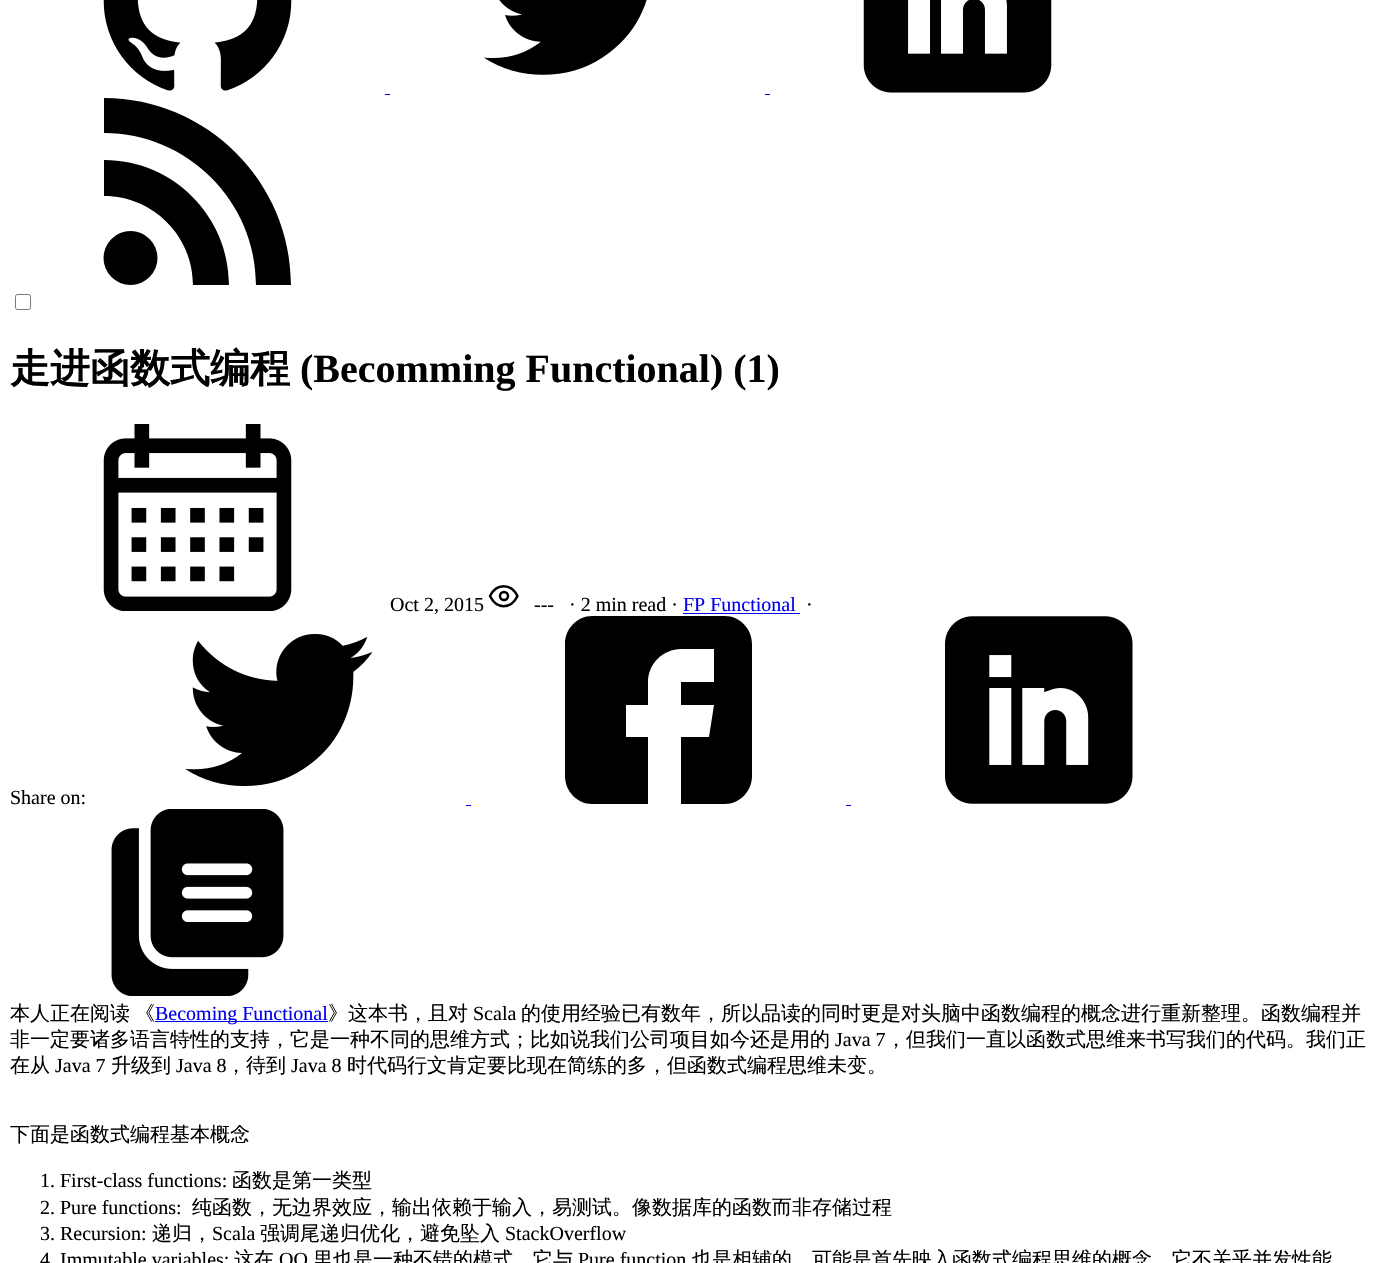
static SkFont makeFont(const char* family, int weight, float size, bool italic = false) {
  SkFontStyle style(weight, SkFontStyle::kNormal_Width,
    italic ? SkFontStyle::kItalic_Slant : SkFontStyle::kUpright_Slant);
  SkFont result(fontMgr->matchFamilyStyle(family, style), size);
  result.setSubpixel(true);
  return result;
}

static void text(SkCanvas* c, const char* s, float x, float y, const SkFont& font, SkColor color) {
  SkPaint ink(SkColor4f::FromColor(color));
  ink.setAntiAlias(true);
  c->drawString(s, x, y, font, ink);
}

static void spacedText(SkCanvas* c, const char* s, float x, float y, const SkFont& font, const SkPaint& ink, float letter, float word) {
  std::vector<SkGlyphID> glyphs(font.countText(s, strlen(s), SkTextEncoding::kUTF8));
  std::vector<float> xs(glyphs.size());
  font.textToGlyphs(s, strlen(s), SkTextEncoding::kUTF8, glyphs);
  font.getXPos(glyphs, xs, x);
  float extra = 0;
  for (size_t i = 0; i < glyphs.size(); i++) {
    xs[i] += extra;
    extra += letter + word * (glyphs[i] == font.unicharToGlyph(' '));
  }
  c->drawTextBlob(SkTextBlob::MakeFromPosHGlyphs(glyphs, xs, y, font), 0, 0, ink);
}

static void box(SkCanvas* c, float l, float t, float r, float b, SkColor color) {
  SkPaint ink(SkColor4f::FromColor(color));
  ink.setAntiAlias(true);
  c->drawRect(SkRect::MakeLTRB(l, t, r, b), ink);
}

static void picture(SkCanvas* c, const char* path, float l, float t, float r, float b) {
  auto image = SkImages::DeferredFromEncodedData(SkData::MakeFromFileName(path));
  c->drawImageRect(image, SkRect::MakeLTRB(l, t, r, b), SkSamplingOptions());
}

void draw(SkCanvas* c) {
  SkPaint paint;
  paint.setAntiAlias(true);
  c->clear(0xffffffff);
  picture(c, "img_01.png", 103, 0, 292, 91);
  picture(c, "img_02.png", 484, 0, 647, 75);
  picture(c, "img_03.png", 863, 0, 1052, 93);
  box(c, 385, 94, 390, 95, 0xff0000ee);
  box(c, 765, 94, 770, 95, 0xff0000ee);
  paint.setColor(0xff000000);
  c->drawCircle(130.5f, 258, 27, paint);
  c->drawPath(SkPathBuilder().moveTo(193, 285).lineTo(229, 285).cubicTo(229, 216, 173, 160, 104, 160).lineTo(104, 196).cubicTo(153, 196, 193, 236, 193, 285).close().detach(), paint);
  c->drawPath(SkPathBuilder().moveTo(291, 285).cubicTo(291, 182, 207, 98, 104, 98).lineTo(104, 133).cubicTo(187, 133, 256, 201, 256, 285).close().detach(), paint);
  paint.setStyle(SkPaint::kStroke_Style);
  paint.setStrokeWidth(1);
  paint.setColor(0xff767676);
  c->drawRoundRect(SkRect::MakeLTRB(15.5f, 294.5f, 30.5f, 309.5f), 2, 2, paint);
  SkFont face1 = makeFont("WenQuanYi Zen Hei", 700, 40);
  text(c, "走进函数式编程", 10, 382, face1, 0xff000000);
  SkFont face2 = makeFont("Liberation Serif", 700, 40);
  text(c, "(Becomming Functional) (1)", 300, 382, face2, 0xff000000);
  picture(c, "img_04.png", 103, 424, 292, 611);
  SkFont face3 = makeFont("Liberation Serif", 400, 20);
  text(c, "Oct 2, 2015", 390, 611, face3, 0xff000000);
  text(c, "· 2 min read ·", 569, 611, face3, 0xff000000);
  text(c, "FP Functional", 683, 611, face3, 0xff0000ee);
  box(c, 683, 613, 800, 614, 0xff0000ee);
  text(c, "·", 806, 611, face3, 0xff000000);
  picture(c, "img_05.png", 185, 634, 373, 787);
  paint.setStyle(SkPaint::kFill_Style);
  paint.setColor(0xff000000);
  c->drawPath(SkPathBuilder().moveTo(725, 616).lineTo(592, 616).cubicTo(577, 616, 565, 629, 565, 644).lineTo(565, 776).cubicTo(565, 791, 577, 804, 592, 804).lineTo(648, 804).lineTo(648, 737).lineTo(626, 737).lineTo(626, 705).lineTo(648, 705).lineTo(648, 682).cubicTo(648, 664, 663, 649, 681, 649).lineTo(714, 649).lineTo(714, 682).lineTo(681, 682).lineTo(681, 705).lineTo(714, 705).lineTo(709, 737).lineTo(681, 737).lineTo(681, 804).lineTo(725, 804).cubicTo(740, 804, 752, 791, 752, 776).lineTo(752, 644).cubicTo(752, 629, 740, 616, 725, 616).close().detach(), paint);
  picture(c, "img_06.png", 945, 616, 1133, 804);
  text(c, "Share on:", 10, 804, face3, 0xff000000);
  box(c, 466, 805, 471, 806, 0xff0000ee);
  box(c, 846, 805, 851, 806, 0xff0000ee);
  picture(c, "img_07.png", 111, 809, 284, 996);
  text(c, "---", 534, 611, face3, 0xff000000);
  paint.setStyle(SkPaint::kStroke_Style);
  paint.setStrokeWidth(2.5f);
  paint.setStrokeCap(SkPaint::kRound_Cap);
  paint.setStrokeJoin(SkPaint::kRound_Join);
  c->drawPath(SkPathBuilder().moveTo(490, 596).cubicTo(496.5f, 583, 511, 583, 517.5f, 596).cubicTo(511, 609.5f, 496.5f, 609.5f, 490, 596).close().detach(), paint);
  paint.setStrokeCap(SkPaint::kButt_Cap);
  paint.setStrokeJoin(SkPaint::kMiter_Join);
  c->drawCircle(504, 596, 4, paint);
  SkFont face4 = makeFont("WenQuanYi Zen Hei", 500, 20);
  paint.setStyle(SkPaint::kFill_Style);
  spacedText(c, "本人正在阅读 《", 10, 1020, face4, paint, 0, -1);
  box(c, 155, 1021, 328, 1022, 0xff0000ee);
  text(c, "Becoming Functional", 155, 1020, face3, 0xff0000ee);
  text(c, "》这本书，且对", 328, 1020, face4, 0xff000000);
  text(c, "Scala", 473, 1020, face3, 0xff000000);
  text(c, "的使用经验已有数年，所以品读的同时更是对头脑中函数编程的概念进行重新整理。函数编程并", 521, 1020, face4, 0xff000000);
  text(c, "非一定要诸多语言特性的支持，它是一种不同的思维方式；比如说我们公司项目如今还是用的", 10, 1046, face4, 0xff000000);
  text(c, "Java 7", 835, 1046, face3, 0xff000000);
  text(c, "，但我们一直以函数式思维来书写我们的代码。我们正", 886, 1046, face4, 0xff000000);
  text(c, "在从", 10, 1072, face4, 0xff000000);
  text(c, "Java 7", 55, 1072, face3, 0xff000000);
  text(c, "升级到", 111, 1072, face4, 0xff000000);
  text(c, "Java 8", 176, 1072, face3, 0xff000000);
  text(c, "，待到", 226, 1072, face4, 0xff000000);
  text(c, "Java 8", 291, 1072, face3, 0xff000000);
  text(c, "时代码行文肯定要比现在简练的多，但函数式编程思维未变。", 347, 1072, face4, 0xff000000);
  text(c, "下面是函数式编程基本概念", 10, 1141, face4, 0xff000000);
  text(c, "1. First-class functions:", 40, 1187, face3, 0xff000000);
  text(c, "函数是第一类型", 232, 1187, face4, 0xff000000);
  text(c, "2. Pure functions:", 40, 1214, face3, 0xff000000);
  text(c, "纯函数，无边界效应，输出依赖于输入，易测试。像数据库的函数而非存储过程", 192, 1214, face4, 0xff000000);
  text(c, "3. Recursion:", 40, 1240, face3, 0xff000000);
  text(c, "递归，", 152, 1240, face4, 0xff000000);
  text(c, "Scala", 212, 1240, face3, 0xff000000);
  text(c, "强调尾递归优化，避免坠入", 260, 1240, face4, 0xff000000);
  text(c, "StackOverflow", 505, 1240, face3, 0xff000000);
  text(c, "4", 40, 1266, face3, 0xff000000);
  text(c, "Immutable variables:", 60, 1266, face3, 0xff000000);
  text(c, "这在", 234, 1266, face4, 0xff000000);
  text(c, "OO", 279, 1266, face3, 0xff000000);
  text(c, "里也是一种不错的模式，它与", 313, 1266, face4, 0xff000000);
  text(c, "Pure function", 578, 1266, face3, 0xff000000);
  text(c, "也是相辅的。可能是首先映入函数式编程思维的概念，它不关乎并发性能", 692, 1266, face4, 0xff000000);
}
